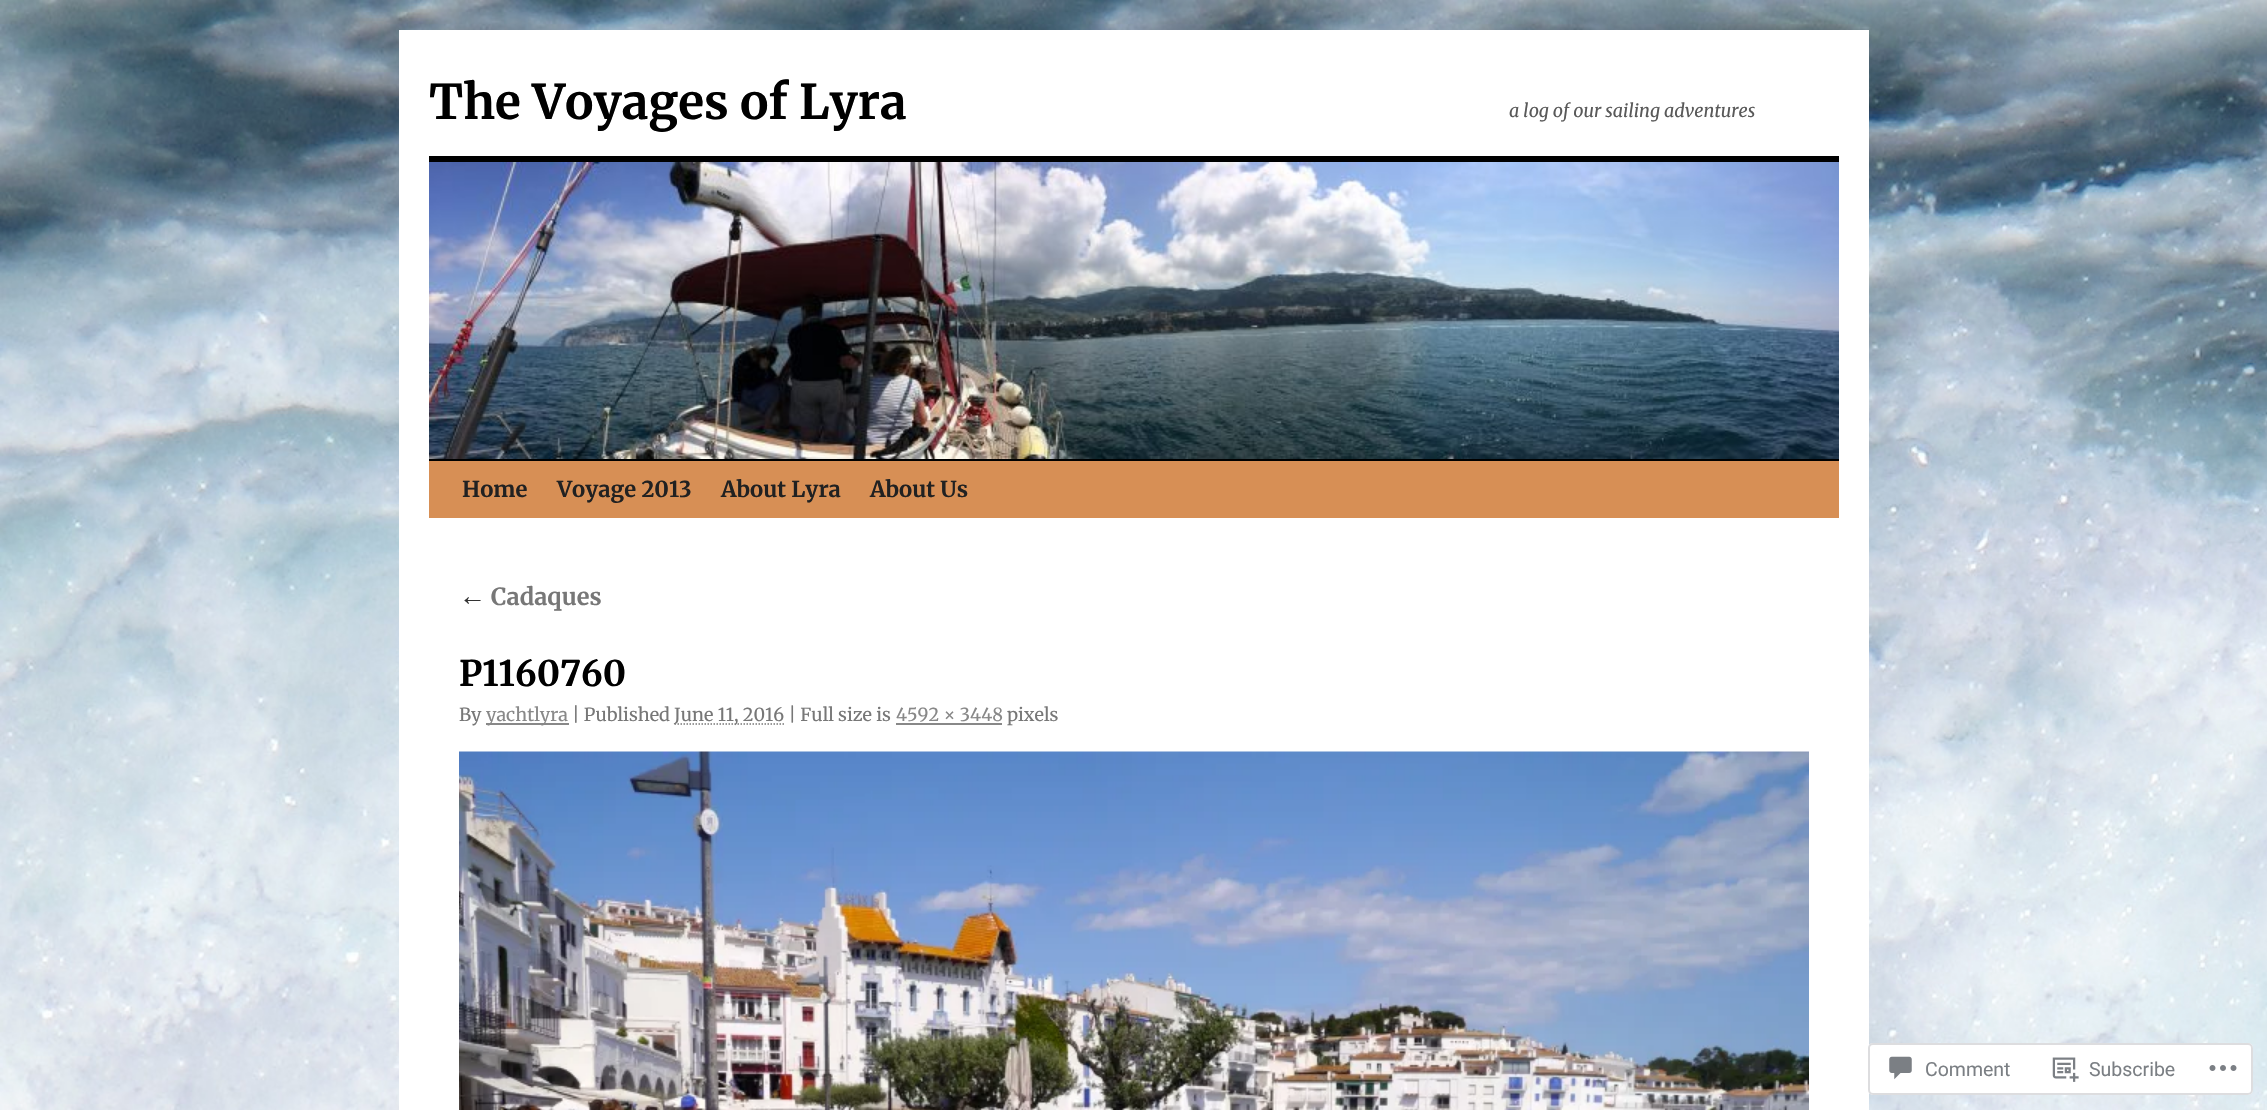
static SkFont makeFont(const char* family, int weight, float size, bool italic = false) {
  SkFontStyle style(weight, SkFontStyle::kNormal_Width,
    italic ? SkFontStyle::kItalic_Slant : SkFontStyle::kUpright_Slant);
  SkFont result(fontMgr->matchFamilyStyle(family, style), size);
  result.setSubpixel(true);
  return result;
}

static void text(SkCanvas* c, const char* s, float x, float y, const SkFont& font, SkColor color) {
  SkPaint ink(SkColor4f::FromColor(color));
  ink.setAntiAlias(true);
  c->drawString(s, x, y, font, ink);
}

static void box(SkCanvas* c, float l, float t, float r, float b, SkColor color) {
  SkPaint ink(SkColor4f::FromColor(color));
  ink.setAntiAlias(true);
  c->drawRect(SkRect::MakeLTRB(l, t, r, b), ink);
}

static void roundBox(SkCanvas* c, float l, float t, float r, float b, float radius, SkColor color) {
  SkPaint ink(SkColor4f::FromColor(color));
  ink.setAntiAlias(true);
  c->drawRoundRect(SkRect::MakeLTRB(l, t, r, b), radius, radius, ink);
}

static void picture(SkCanvas* c, const char* path, float l, float t, float r, float b) {
  auto image = SkImages::DeferredFromEncodedData(SkData::MakeFromFileName(path));
  c->drawImageRect(image, SkRect::MakeLTRB(l, t, r, b), SkSamplingOptions());
}

void draw(SkCanvas* c) {
  SkPaint paint;
  paint.setAntiAlias(true);
  c->clear(0xffffffff);
  picture(c, "img_01.png", 0, 0, 2267, 1110);
  box(c, 399, 30, 1869, 1110, 0xffffffff);
  SkFont face1 = makeFont("Merriweather", 700, 47.75f);
  text(c, "The Voyages of Lyra", 429, 119, face1, 0xff000000);
  SkFont face2 = makeFont("Merriweather", 400, 18, true);
  text(c, "a log of our sailing adventures", 1509, 117, face2, 0xff595959);
  box(c, 429, 156, 1839, 162, 0xff000000);
  box(c, 429, 459, 1839, 461, 0xff000000);
  picture(c, "img_02.png", 429, 162, 1839, 459);
  box(c, 429, 461, 1839, 518, 0xffd78f55);
  SkFont face3 = makeFont("Merriweather", 700, 22);
  text(c, "Home", 462, 497, face3, 0xff212121);
  text(c, "Voyage 2013", 557, 497, face3, 0xff212121);
  text(c, "About Lyra", 721, 497, face3, 0xff212121);
  text(c, "About Us", 870, 497, face3, 0xff212121);
  SkFont face4 = makeFont("Liberation Serif", 700, 27);
  text(c, "←", 459, 605, face4, 0xff333333);
  SkFont face5 = makeFont("Merriweather", 700, 23.5f);
  text(c, "Cadaques", 491, 605, face5, 0xff777777);
  SkFont face6 = makeFont("Merriweather", 700, 35.25f);
  text(c, "P1160760", 459, 686, face6, 0xff000000);
  SkFont face7 = makeFont("Merriweather", 400, 18);
  text(c, "By", 459, 721, face7, 0xff777777);
  box(c, 486, 723, 569, 725, 0xff888888);
  text(c, "yachtlyra", 486, 721, face7, 0xff888888);
  text(c, "| Published", 572, 721, face7, 0xff777777);
  paint.setStyle(SkPaint::kStroke_Style);
  paint.setStrokeWidth(1.5f);
  paint.setColor(0xff777777);
  paint.setPathEffect(SkDashPathEffect::Make({{1.5f, 1.5f}}, 0));
  c->drawPath(SkPathBuilder().moveTo(674.5f, 724).lineTo(784.5f, 724).detach(), paint);
  paint.setPathEffect(nullptr);
  text(c, "June 11, 2016 | Full size is", 674, 721, face7, 0xff777777);
  text(c, "4592 × 3448", 896, 721, face7, 0xff888888);
  box(c, 896, 723, 1002, 725, 0xff888888);
  text(c, "pixels", 1007, 721, face7, 0xff777777);
  picture(c, "img_03.png", 459, 751, 1809, 1110);
  roundBox(c, 1868, 1043, 2253, 1095, 5, 0xfaffffff);
  paint.setStrokeWidth(2);
  paint.setColor(0xfadcdcde);
  c->drawRoundRect(SkRect::MakeLTRB(1869, 1044, 2252, 1094), 4, 4, paint);
  picture(c, "img_04.png", 1889, 1056, 1912, 1080);
  SkFont face8 = makeFont("Roboto", 400, 19.5f);
  text(c, "Comment", 1925, 1076, face8, 0xff7b7f84);
  picture(c, "img_05.png", 2052, 1057, 2079, 1082);
  text(c, "Subscribe", 2089, 1076, face8, 0xff7b7f84);
  picture(c, "img_06.png", 2209, 1065, 2237, 1071);
}
